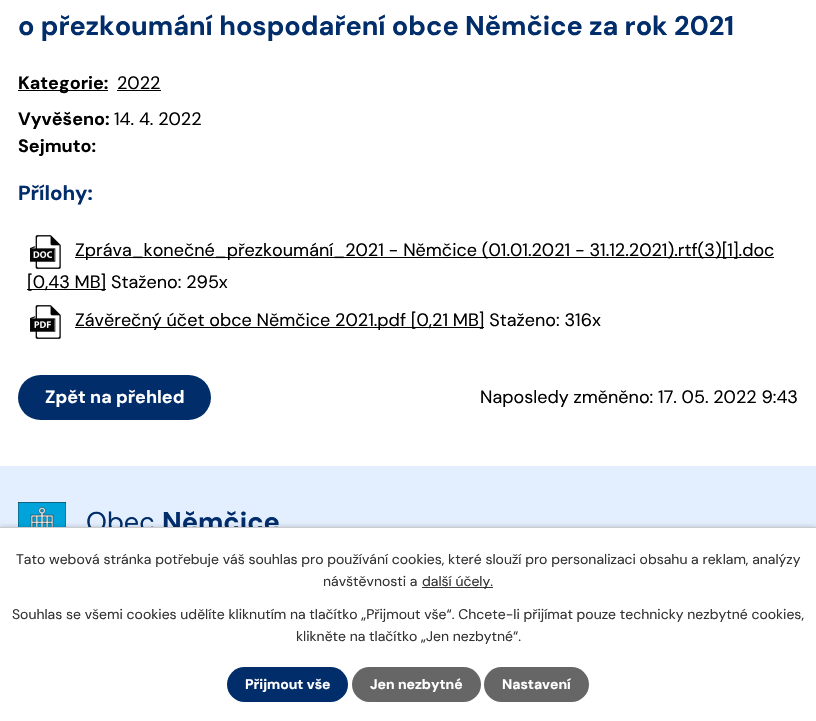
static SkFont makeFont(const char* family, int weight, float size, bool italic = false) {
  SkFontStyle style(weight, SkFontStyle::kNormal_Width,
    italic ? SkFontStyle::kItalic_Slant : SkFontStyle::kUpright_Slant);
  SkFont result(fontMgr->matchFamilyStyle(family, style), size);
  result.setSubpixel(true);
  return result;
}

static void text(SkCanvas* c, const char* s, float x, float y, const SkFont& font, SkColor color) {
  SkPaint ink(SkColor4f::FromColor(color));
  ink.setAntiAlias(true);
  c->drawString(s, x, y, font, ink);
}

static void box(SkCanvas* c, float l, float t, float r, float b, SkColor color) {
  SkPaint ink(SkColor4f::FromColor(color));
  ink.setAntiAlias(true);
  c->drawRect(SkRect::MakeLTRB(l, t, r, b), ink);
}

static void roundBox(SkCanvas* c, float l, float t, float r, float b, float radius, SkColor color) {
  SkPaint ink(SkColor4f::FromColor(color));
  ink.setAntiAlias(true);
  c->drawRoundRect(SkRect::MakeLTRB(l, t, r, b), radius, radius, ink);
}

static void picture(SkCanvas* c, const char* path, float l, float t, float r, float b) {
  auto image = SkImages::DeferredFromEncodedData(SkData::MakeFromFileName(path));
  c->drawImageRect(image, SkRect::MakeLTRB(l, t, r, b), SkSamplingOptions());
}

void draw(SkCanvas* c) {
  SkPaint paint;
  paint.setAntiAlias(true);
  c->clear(0xffffffff);
  SkFont face1 = makeFont("DM Sans", 700, 27);
  text(c, "o přezkoumání hospodaření obce Němčice za rok 2021", 18, 35, face1, 0xff012d6a);
  box(c, 18, 90, 108, 91, 0xff000000);
  SkFont face2 = makeFont("DM Sans", 700, 18);
  text(c, "Kategorie:", 18, 89, face2, 0xff000000);
  SkFont face3 = makeFont("DM Sans", 400, 18);
  text(c, "2022", 117, 89, face3, 0xff000000);
  box(c, 117, 90, 161, 91, 0xff000000);
  text(c, "Vyvěšeno:", 18, 125, face2, 0xff000000);
  text(c, "14. 4. 2022", 114, 125, face3, 0xff000000);
  text(c, "Sejmuto:", 18, 152, face2, 0xff000000);
  SkFont face4 = makeFont("DM Sans", 700, 20.5f);
  text(c, "Přílohy:", 18, 200, face4, 0xff012d6a);
  picture(c, "img_01.png", 30, 235, 61, 269);
  box(c, 75, 257, 774, 258, 0xff000000);
  text(c, "Zpráva_konečné_přezkoumání_2021 - Němčice (01.01.2021 - 31.12.2021).rtf(3)[1].doc", 75, 256, face3, 0xff000000);
  box(c, 27, 289, 106, 290, 0xff000000);
  text(c, "[0,43 MB] Staženo: 295x", 27, 288, face3, 0xff000000);
  picture(c, "img_02.png", 30, 305, 61, 339);
  box(c, 75, 327, 484, 328, 0xff000000);
  text(c, "Závěrečný účet obce Němčice 2021.pdf [0,21 MB] Staženo: 316x", 75, 326, face3, 0xff000000);
  roundBox(c, 18, 375, 211, 420, 22.5f, 0xff012d6a);
  text(c, "Zpět na přehled", 45, 403, face2, 0xffffffff);
  text(c, "Naposledy změněno: 17. 05. 2022 9:43", 480, 403, face3, 0xff000000);
  box(c, 0, 466, 816, 527, 0xffe3efff);
  picture(c, "img_03.png", 18, 502, 66, 527);
  SkFont face5 = makeFont("DM Sans", 400, 27);
  text(c, "Obec", 86, 531, face5, 0xff012d6a);
  text(c, "Němčice", 162, 531, face1, 0xff012d6a);
  paint.setColor(0x33000000);
  paint.setMaskFilter(SkMaskFilter::MakeBlur(kNormal_SkBlurStyle, 2.5f));
  c->drawRect(SkRect::MakeLTRB(0, 527, 816, 721), paint);
  paint.setMaskFilter(nullptr);
  box(c, 0, 528, 816, 721, 0xffffffff);
  box(c, 0, 527, 816, 528, 0xffcccccc);
  SkFont face6 = makeFont("DM Sans", 400, 14);
  text(c, "Tato webová stránka potřebuje váš souhlas pro používání cookies, které slouží pro personalizaci obsahu a reklam, analýzy", 16, 564, face6, 0xff333333);
  text(c, "návštěvnosti a", 323, 586, face6, 0xff333333);
  box(c, 422, 587, 493, 588, 0xff333333);
  text(c, "další účely.", 422, 586, face6, 0xff333333);
  text(c, "Souhlas se všemi cookies udělíte kliknutím na tlačítko „Přijmout vše“. Chcete-li přijímat pouze technicky nezbytné cookies,", 12, 619, face6, 0xff333333);
  text(c, "klikněte na tlačítko „Jen nezbytné“.", 296, 641, face6, 0xff333333);
  roundBox(c, 227, 667, 348, 702, 17.5f, 0xff012d6a);
  SkFont face7 = makeFont("DM Sans", 700, 14);
  text(c, "Přijmout vše", 245, 689, face7, 0xffffffff);
  roundBox(c, 352, 667, 481, 702, 17.5f, 0xff666666);
  text(c, "Jen nezbytné", 370, 689, face7, 0xffffffff);
  roundBox(c, 484, 667, 589, 702, 17.5f, 0xff666666);
  text(c, "Nastavení", 502, 689, face7, 0xffffffff);
}
